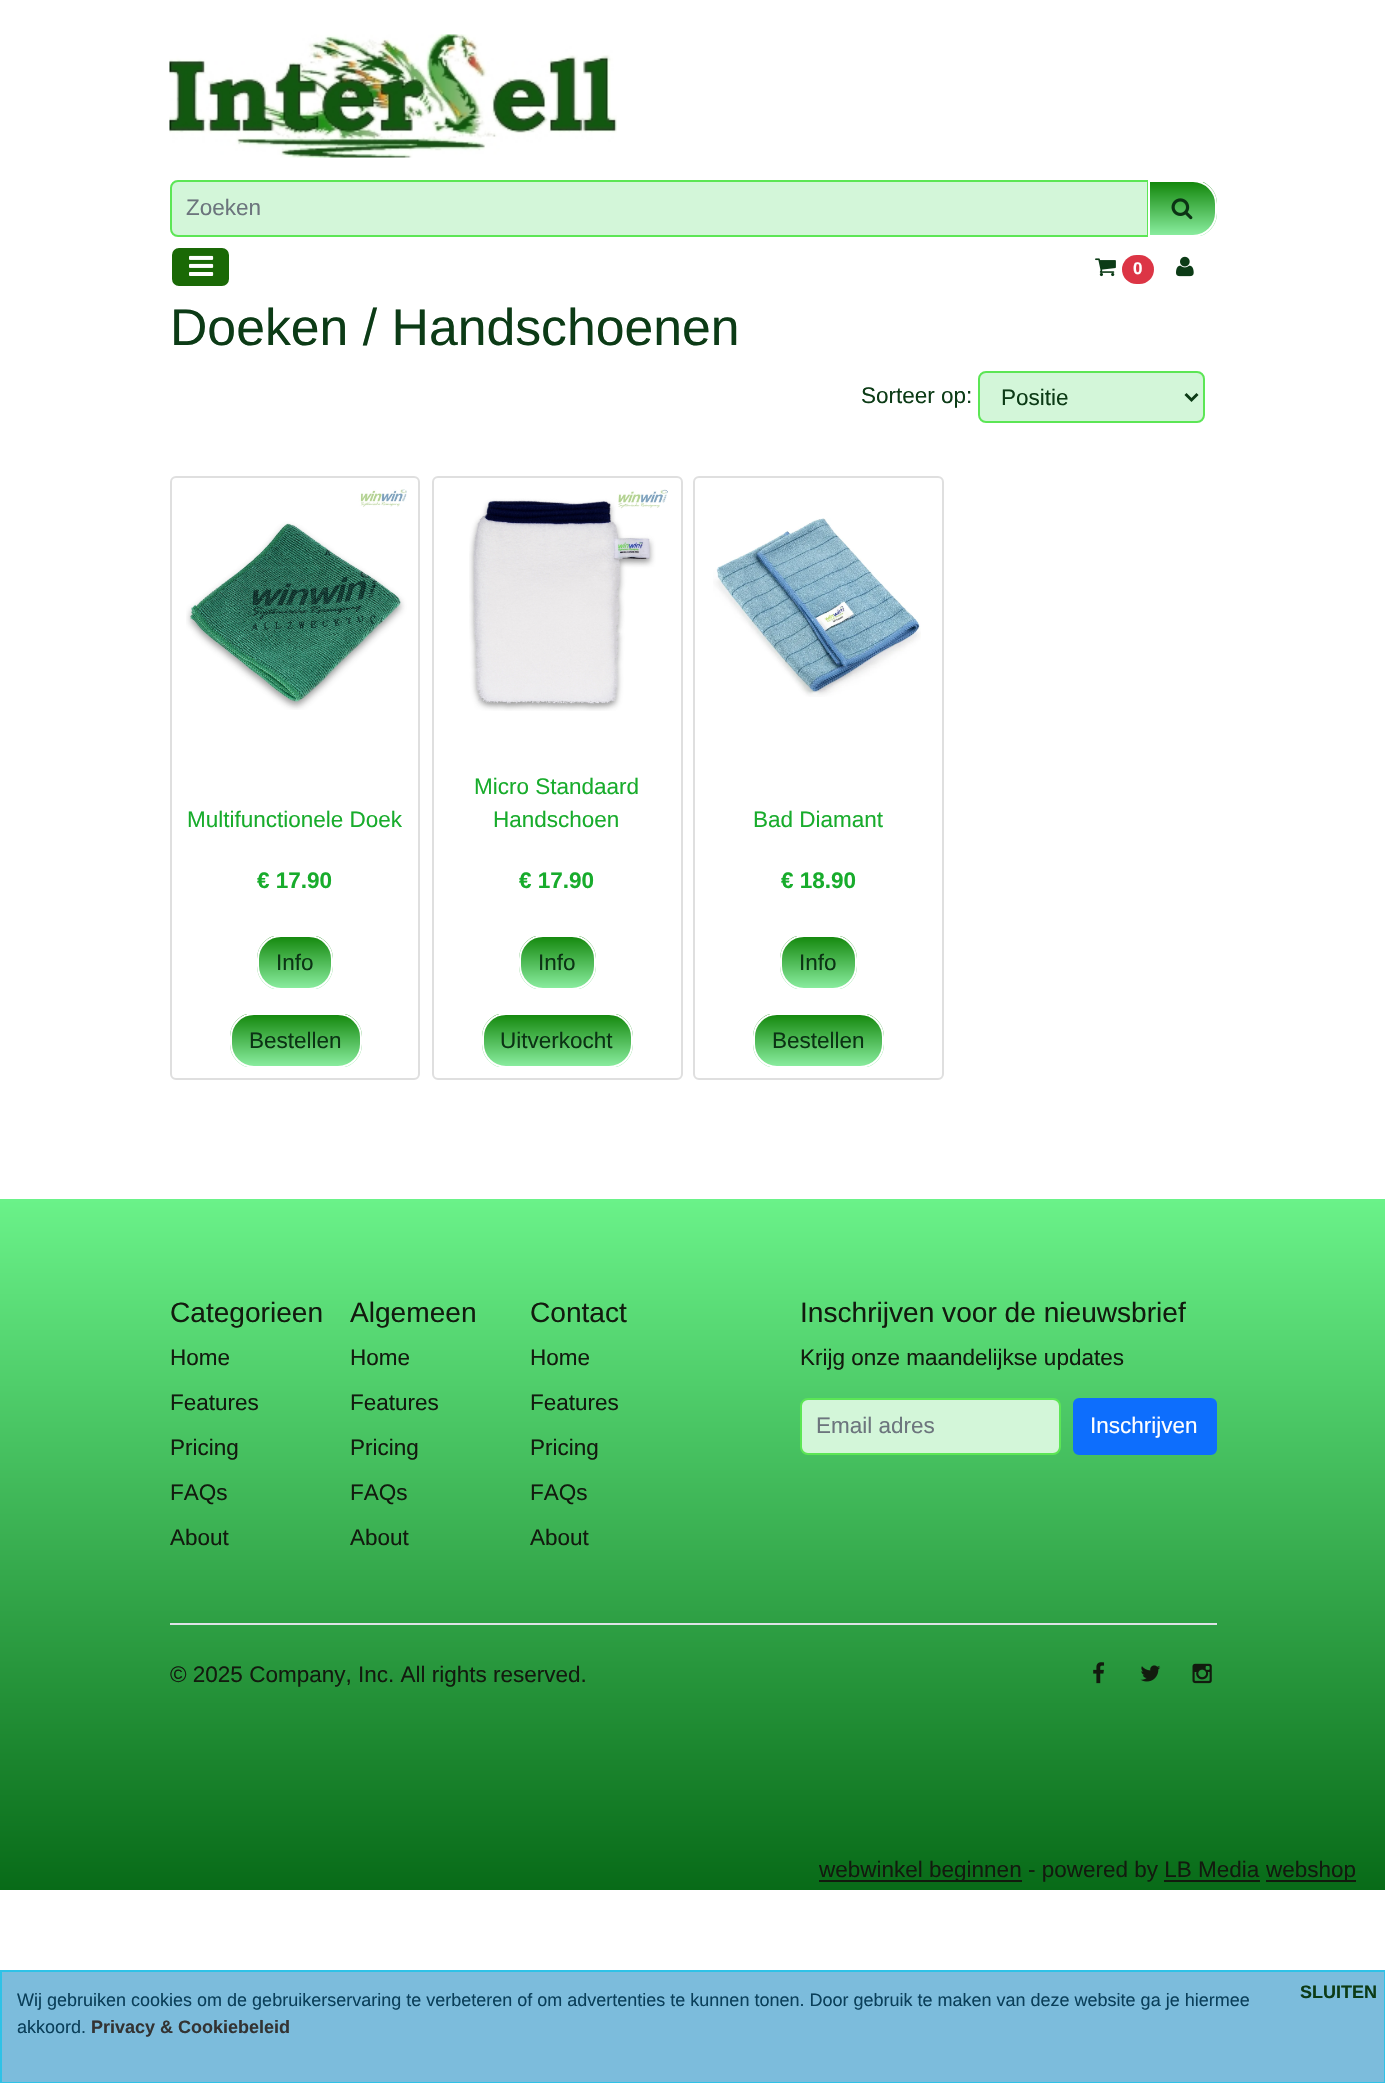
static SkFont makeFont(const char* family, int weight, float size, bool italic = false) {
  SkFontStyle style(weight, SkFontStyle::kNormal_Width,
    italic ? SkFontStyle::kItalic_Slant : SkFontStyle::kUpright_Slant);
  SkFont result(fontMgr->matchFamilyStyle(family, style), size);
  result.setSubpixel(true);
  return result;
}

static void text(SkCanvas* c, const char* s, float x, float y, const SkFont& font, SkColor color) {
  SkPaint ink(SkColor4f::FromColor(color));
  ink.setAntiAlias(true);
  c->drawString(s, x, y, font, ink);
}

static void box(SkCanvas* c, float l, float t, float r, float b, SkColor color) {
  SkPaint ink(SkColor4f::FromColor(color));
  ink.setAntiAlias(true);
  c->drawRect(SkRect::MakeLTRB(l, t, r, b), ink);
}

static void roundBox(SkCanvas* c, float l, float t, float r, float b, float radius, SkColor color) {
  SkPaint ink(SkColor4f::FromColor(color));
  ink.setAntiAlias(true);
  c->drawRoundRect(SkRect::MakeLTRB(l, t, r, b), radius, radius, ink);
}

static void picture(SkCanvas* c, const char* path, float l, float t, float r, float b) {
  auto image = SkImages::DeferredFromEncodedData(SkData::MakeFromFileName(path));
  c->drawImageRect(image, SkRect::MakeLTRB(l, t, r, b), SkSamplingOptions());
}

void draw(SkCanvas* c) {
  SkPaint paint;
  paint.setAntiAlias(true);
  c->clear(0xffffffff);
  picture(c, "img_01.png", 169, 34, 617, 158);
  paint.setColor(0xffd3f6d9);
  c->drawPath(SkPathBuilder().moveTo(178, 181).lineTo(1148, 181).lineTo(1148, 236).lineTo(178, 236).cubicTo(174, 236, 171, 233, 171, 229).lineTo(171, 188).cubicTo(171, 184, 174, 181, 178, 181).close().detach(), paint);
  paint.setStyle(SkPaint::kStroke_Style);
  paint.setStrokeWidth(2);
  paint.setColor(0xff5ce655);
  c->drawPath(SkPathBuilder().moveTo(178, 181).lineTo(1148, 181).lineTo(1148, 236).lineTo(178, 236).cubicTo(174, 236, 171, 233, 171, 229).lineTo(171, 188).cubicTo(171, 184, 174, 181, 178, 181).close().detach(), paint);
  SkFont face1 = makeFont("Liberation Sans", 400, 22.5f);
  text(c, "Zoeken", 186, 215, face1, 0xff6c757d);
  c->save();
  c->clipPath(SkPathBuilder().moveTo(1148, 180).lineTo(1193, 180).cubicTo(1206.5f, 180, 1217, 190.5f, 1217, 204).lineTo(1217, 213).cubicTo(1217, 226.5f, 1206.5f, 237, 1193, 237).lineTo(1148, 237).close().detach(), true);
  paint.setStyle(SkPaint::kFill_Style);
  {
    const SkColor colors[] = {0xff13870c, 0xff8beea1};
    const float stops[] = {0, 1};
    const SkPoint ends[] = {{1182, 182}, {1182, 236}};
    paint.setShader(SkGradientShader::MakeLinear(ends, colors, stops, 2, SkTileMode::kClamp));
    paint.setAlpha(255);
  }
  c->drawRect(SkRect::MakeLTRB(1150, 182, 1217, 236), paint);
  c->restore();
  paint.setStyle(SkPaint::kStroke_Style);
  paint.setShader(nullptr);
  paint.setColor(0xffffffff);
  c->drawPath(SkPathBuilder().moveTo(1149, 181).lineTo(1193, 181).cubicTo(1205.5f, 181, 1216, 191.5f, 1216, 204).lineTo(1216, 213).cubicTo(1216, 225.5f, 1205.5f, 236, 1193, 236).lineTo(1149, 236).close().detach(), paint);
  picture(c, "img_02.png", 1171, 198, 1193, 220);
  paint.setStyle(SkPaint::kFill_Style);
  paint.setColor(0xff1a6906);
  c->drawRoundRect(SkRect::MakeLTRB(171, 247, 230, 287), 8, 8, paint);
  paint.setStyle(SkPaint::kStroke_Style);
  paint.setColor(0xffffffff);
  c->drawRoundRect(SkRect::MakeLTRB(171, 247, 230, 287), 8, 8, paint);
  picture(c, "img_03.png", 189, 255, 214, 276);
  picture(c, "img_04.png", 1095, 258, 1116, 277);
  roundBox(c, 1122, 255, 1154, 284, 14.5f, 0xffdc3545);
  SkFont face2 = makeFont("Liberation Sans", 700, 17);
  text(c, "0", 1133, 274, face2, 0xffffffff);
  picture(c, "img_05.png", 1176, 256, 1194, 277);
  SkFont face3 = makeFont("Liberation Sans", 400, 51.75f);
  text(c, "Doeken / Handschoenen", 170, 345, face3, 0xff0c3b16);
  text(c, "Sorteer op:", 861, 403, face1, 0xff0c3b16);
  paint.setStyle(SkPaint::kFill_Style);
  paint.setColor(0xffd3f6d9);
  c->drawRoundRect(SkRect::MakeLTRB(979, 372, 1204, 422), 7, 7, paint);
  paint.setStyle(SkPaint::kStroke_Style);
  paint.setColor(0xff5ce655);
  c->drawRoundRect(SkRect::MakeLTRB(979, 372, 1204, 422), 7, 7, paint);
  paint.setStrokeWidth(3);
  paint.setColor(0xff0c3b16);
  c->drawPath(SkPathBuilder().moveTo(1185.5f, 394).lineTo(1191.5f, 400).lineTo(1197.5f, 394).detach(), paint);
  text(c, "Positie", 1001, 405, face1, 0xff0c3b16);
  paint.setStrokeWidth(2);
  paint.setColor(0xffdfdfdf);
  c->drawRoundRect(SkRect::MakeLTRB(171, 477, 419, 1079), 5, 5, paint);
  picture(c, "img_06.png", 186, 489, 407, 710);
  text(c, "Multifunctionele Doek", 187, 827, face1, 0xff18ac2c);
  SkFont face4 = makeFont("Liberation Sans", 700, 22.5f);
  text(c, "€ 17.90", 257, 888, face4, 0xff18ac2c);
  c->save();
  c->clipPath(SkPathBuilder().moveTo(281, 935).lineTo(309, 935).cubicTo(322.5f, 935, 333, 945.5f, 333, 959).lineTo(333, 966).cubicTo(333, 979.5f, 322.5f, 990, 309, 990).lineTo(281, 990).cubicTo(267.5f, 990, 257, 979.5f, 257, 966).lineTo(257, 959).cubicTo(257, 945.5f, 267.5f, 935, 281, 935).close().detach(), true);
  paint.setStyle(SkPaint::kFill_Style);
  {
    const SkColor colors[] = {0xff13870c, 0xff8beea1};
    const float stops[] = {0, 1};
    const SkPoint ends[] = {{295, 936}, {295, 989}};
    paint.setShader(SkGradientShader::MakeLinear(ends, colors, stops, 2, SkTileMode::kClamp));
    paint.setAlpha(255);
  }
  c->drawRect(SkRect::MakeLTRB(257, 936, 333, 989), paint);
  c->restore();
  paint.setStyle(SkPaint::kStroke_Style);
  paint.setShader(nullptr);
  paint.setColor(0xffffffff);
  c->drawRoundRect(SkRect::MakeLTRB(258, 936, 332, 989), 23, 23, paint);
  text(c, "Info", 276, 970, face1, 0xff0b3314);
  c->save();
  c->clipPath(SkPathBuilder().moveTo(254, 1013).lineTo(338, 1013).cubicTo(351.5f, 1013, 362, 1023.5f, 362, 1037).lineTo(362, 1044).cubicTo(362, 1057.5f, 351.5f, 1068, 338, 1068).lineTo(254, 1068).cubicTo(240.5f, 1068, 230, 1057.5f, 230, 1044).lineTo(230, 1037).cubicTo(230, 1023.5f, 240.5f, 1013, 254, 1013).close().detach(), true);
  paint.setStyle(SkPaint::kFill_Style);
  {
    const SkColor colors[] = {0xff13870c, 0xff8beea1};
    const float stops[] = {0, 1};
    const SkPoint ends[] = {{296, 1014}, {296, 1067}};
    paint.setShader(SkGradientShader::MakeLinear(ends, colors, stops, 2, SkTileMode::kClamp));
    paint.setAlpha(255);
  }
  c->drawRect(SkRect::MakeLTRB(230, 1014, 362, 1067), paint);
  c->restore();
  paint.setStyle(SkPaint::kStroke_Style);
  paint.setShader(nullptr);
  paint.setColor(0xffffffff);
  c->drawRoundRect(SkRect::MakeLTRB(231, 1014, 361, 1067), 23, 23, paint);
  text(c, "Bestellen", 249, 1048, face1, 0xff0b3314);
  paint.setColor(0xffdfdfdf);
  c->drawRoundRect(SkRect::MakeLTRB(433, 477, 682, 1079), 5, 5, paint);
  picture(c, "img_07.png", 469, 489, 668, 711);
  text(c, "Micro Standaard", 474, 794, face1, 0xff18ac2c);
  text(c, "Handschoen", 493, 827, face1, 0xff18ac2c);
  text(c, "€ 17.90", 519, 888, face4, 0xff18ac2c);
  c->save();
  c->clipPath(SkPathBuilder().moveTo(543, 935).lineTo(572, 935).cubicTo(585.5f, 935, 596, 945.5f, 596, 959).lineTo(596, 966).cubicTo(596, 979.5f, 585.5f, 990, 572, 990).lineTo(543, 990).cubicTo(529.5f, 990, 519, 979.5f, 519, 966).lineTo(519, 959).cubicTo(519, 945.5f, 529.5f, 935, 543, 935).close().detach(), true);
  paint.setStyle(SkPaint::kFill_Style);
  {
    const SkColor colors[] = {0xff13870c, 0xff8beea1};
    const float stops[] = {0, 1};
    const SkPoint ends[] = {{557, 936}, {557, 989}};
    paint.setShader(SkGradientShader::MakeLinear(ends, colors, stops, 2, SkTileMode::kClamp));
    paint.setAlpha(255);
  }
  c->drawRect(SkRect::MakeLTRB(519, 936, 596, 989), paint);
  c->restore();
  paint.setStyle(SkPaint::kStroke_Style);
  paint.setShader(nullptr);
  paint.setColor(0xffffffff);
  c->drawRoundRect(SkRect::MakeLTRB(520, 936, 595, 989), 23, 23, paint);
  text(c, "Info", 538, 970, face1, 0xff0b3314);
  c->save();
  c->clipPath(SkPathBuilder().moveTo(506, 1013).lineTo(609, 1013).cubicTo(622.5f, 1013, 633, 1023.5f, 633, 1037).lineTo(633, 1044).cubicTo(633, 1057.5f, 622.5f, 1068, 609, 1068).lineTo(506, 1068).cubicTo(492.5f, 1068, 482, 1057.5f, 482, 1044).lineTo(482, 1037).cubicTo(482, 1023.5f, 492.5f, 1013, 506, 1013).close().detach(), true);
  paint.setStyle(SkPaint::kFill_Style);
  {
    const SkColor colors[] = {0xff13870c, 0xff8beea1};
    const float stops[] = {0, 1};
    const SkPoint ends[] = {{557, 1014}, {557, 1067}};
    paint.setShader(SkGradientShader::MakeLinear(ends, colors, stops, 2, SkTileMode::kClamp));
    paint.setAlpha(255);
  }
  c->drawRect(SkRect::MakeLTRB(482, 1014, 633, 1067), paint);
  c->restore();
  paint.setStyle(SkPaint::kStroke_Style);
  paint.setShader(nullptr);
  paint.setColor(0xffffffff);
  c->drawRoundRect(SkRect::MakeLTRB(483, 1014, 632, 1067), 23, 23, paint);
  text(c, "Uitverkocht", 500, 1048, face1, 0xff0b3314);
  paint.setColor(0xffdfdfdf);
  c->drawRoundRect(SkRect::MakeLTRB(694, 477, 943, 1079), 5, 5, paint);
  picture(c, "img_08.png", 713, 518, 921, 697);
  text(c, "Bad Diamant", 753, 827, face1, 0xff18ac2c);
  text(c, "€ 18.90", 781, 888, face4, 0xff18ac2c);
  c->save();
  c->clipPath(SkPathBuilder().moveTo(804, 935).lineTo(833, 935).cubicTo(846.5f, 935, 857, 945.5f, 857, 959).lineTo(857, 966).cubicTo(857, 979.5f, 846.5f, 990, 833, 990).lineTo(804, 990).cubicTo(790.5f, 990, 780, 979.5f, 780, 966).lineTo(780, 959).cubicTo(780, 945.5f, 790.5f, 935, 804, 935).close().detach(), true);
  paint.setStyle(SkPaint::kFill_Style);
  {
    const SkColor colors[] = {0xff13870c, 0xff8beea1};
    const float stops[] = {0, 1};
    const SkPoint ends[] = {{818, 936}, {818, 989}};
    paint.setShader(SkGradientShader::MakeLinear(ends, colors, stops, 2, SkTileMode::kClamp));
    paint.setAlpha(255);
  }
  c->drawRect(SkRect::MakeLTRB(780, 936, 857, 989), paint);
  c->restore();
  paint.setStyle(SkPaint::kStroke_Style);
  paint.setShader(nullptr);
  paint.setColor(0xffffffff);
  c->drawRoundRect(SkRect::MakeLTRB(781, 936, 856, 989), 23, 23, paint);
  text(c, "Info", 799, 970, face1, 0xff0b3314);
  c->save();
  c->clipPath(SkPathBuilder().moveTo(777, 1013).lineTo(860, 1013).cubicTo(873.5f, 1013, 884, 1023.5f, 884, 1037).lineTo(884, 1044).cubicTo(884, 1057.5f, 873.5f, 1068, 860, 1068).lineTo(777, 1068).cubicTo(763.5f, 1068, 753, 1057.5f, 753, 1044).lineTo(753, 1037).cubicTo(753, 1023.5f, 763.5f, 1013, 777, 1013).close().detach(), true);
  paint.setStyle(SkPaint::kFill_Style);
  {
    const SkColor colors[] = {0xff13870c, 0xff8beea1};
    const float stops[] = {0, 1};
    const SkPoint ends[] = {{818, 1014}, {818, 1067}};
    paint.setShader(SkGradientShader::MakeLinear(ends, colors, stops, 2, SkTileMode::kClamp));
    paint.setAlpha(255);
  }
  c->drawRect(SkRect::MakeLTRB(753, 1014, 884, 1067), paint);
  c->restore();
  paint.setStyle(SkPaint::kStroke_Style);
  paint.setShader(nullptr);
  paint.setColor(0xffffffff);
  c->drawRoundRect(SkRect::MakeLTRB(754, 1014, 883, 1067), 23, 23, paint);
  text(c, "Bestellen", 772, 1048, face1, 0xff0b3314);
  paint.setStyle(SkPaint::kFill_Style);
  {
    const SkColor colors[] = {0xff6af289, 0xff086b18};
    const float stops[] = {0, 1};
    const SkPoint ends[] = {{693, 1199}, {693, 1890}};
    paint.setShader(SkGradientShader::MakeLinear(ends, colors, stops, 2, SkTileMode::kClamp));
    paint.setAlpha(255);
  }
  c->drawRect(SkRect::MakeLTRB(0, 1199, 1385, 1890), paint);
  SkFont face5 = makeFont("Liberation Sans", 400, 28.1f);
  text(c, "Categorieen", 170, 1322, face5, 0xff121b0e);
  text(c, "Home", 170, 1365, face1, 0xff121b0e);
  text(c, "Features", 170, 1410, face1, 0xff121b0e);
  text(c, "Pricing", 170, 1455, face1, 0xff121b0e);
  text(c, "FAQs", 170, 1500, face1, 0xff121b0e);
  text(c, "About", 170, 1545, face1, 0xff121b0e);
  text(c, "Algemeen", 350, 1322, face5, 0xff121b0e);
  text(c, "Home", 350, 1365, face1, 0xff121b0e);
  text(c, "Features", 350, 1410, face1, 0xff121b0e);
  text(c, "Pricing", 350, 1455, face1, 0xff121b0e);
  text(c, "FAQs", 350, 1500, face1, 0xff121b0e);
  text(c, "About", 350, 1545, face1, 0xff121b0e);
  text(c, "Contact", 530, 1322, face5, 0xff121b0e);
  text(c, "Home", 530, 1365, face1, 0xff121b0e);
  text(c, "Features", 530, 1410, face1, 0xff121b0e);
  text(c, "Pricing", 530, 1455, face1, 0xff121b0e);
  text(c, "FAQs", 530, 1500, face1, 0xff121b0e);
  text(c, "About", 530, 1545, face1, 0xff121b0e);
  text(c, "Inschrijven voor de nieuwsbrief", 800, 1322, face5, 0xff121b0e);
  text(c, "Krijg onze maandelijkse updates", 800, 1365, face1, 0xff121b0e);
  paint.setShader(nullptr);
  paint.setColor(0xffd3f6d9);
  c->drawRoundRect(SkRect::MakeLTRB(801, 1399, 1060, 1454), 7, 7, paint);
  paint.setStyle(SkPaint::kStroke_Style);
  paint.setColor(0xff5ce655);
  c->drawRoundRect(SkRect::MakeLTRB(801, 1399, 1060, 1454), 7, 7, paint);
  text(c, "Email adres", 816, 1433, face1, 0xff6c757d);
  paint.setStyle(SkPaint::kFill_Style);
  paint.setColor(0xff0d6efd);
  c->drawRoundRect(SkRect::MakeLTRB(1074, 1399, 1216, 1454), 5, 5, paint);
  paint.setStyle(SkPaint::kStroke_Style);
  c->drawRoundRect(SkRect::MakeLTRB(1074, 1399, 1216, 1454), 5, 5, paint);
  text(c, "Inschrijven", 1090, 1433, face1, 0xffffffff);
  box(c, 170, 1623, 1217, 1625, 0xffdee2e6);
  text(c, "© 2025 Company, Inc. All rights reserved.", 170, 1682, face1, 0xff121b0e);
  picture(c, "img_09.png", 1093, 1662, 1105, 1684);
  picture(c, "img_10.png", 1140, 1665, 1161, 1682);
  picture(c, "img_11.png", 1192, 1663, 1212, 1684);
  box(c, 819, 1880, 1022, 1882, 0xff121b0e);
  text(c, "webwinkel beginnen - powered by LB Media", 819, 1877, face1, 0xff121b0e);
  box(c, 1266, 1880, 1356, 1882, 0xff121b0e);
  text(c, "webshop", 1266, 1877, face1, 0xff121b0e);
  box(c, 1164, 1880, 1260, 1882, 0xff121b0e);
  paint.setStyle(SkPaint::kFill_Style);
  paint.setColor(0xff7cbcdc);
  c->drawRect(SkRect::MakeLTRB(1, 1971, 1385, 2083), paint);
  paint.setStyle(SkPaint::kStroke_Style);
  paint.setColor(0xff2ec2e7);
  c->drawRect(SkRect::MakeLTRB(1, 1971, 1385, 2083), paint);
  SkFont face6 = makeFont("Liberation Sans", 400, 18);
  text(c, "Wij gebruiken cookies om de gebruikerservaring te verbeteren of om advertenties te kunnen tonen. Door gebruik te maken van deze website ga je hiermee", 17, 2006, face6, 0xff0a3f5a);
  text(c, "akkoord.", 17, 2033, face6, 0xff0a3f5a);
  SkFont face7 = makeFont("Liberation Sans", 700, 18);
  text(c, "Privacy & Cookiebeleid", 91, 2033, face7, 0xff333333);
  text(c, "SLUITEN", 1300, 1998, face7, 0xff0c3b16);
}
